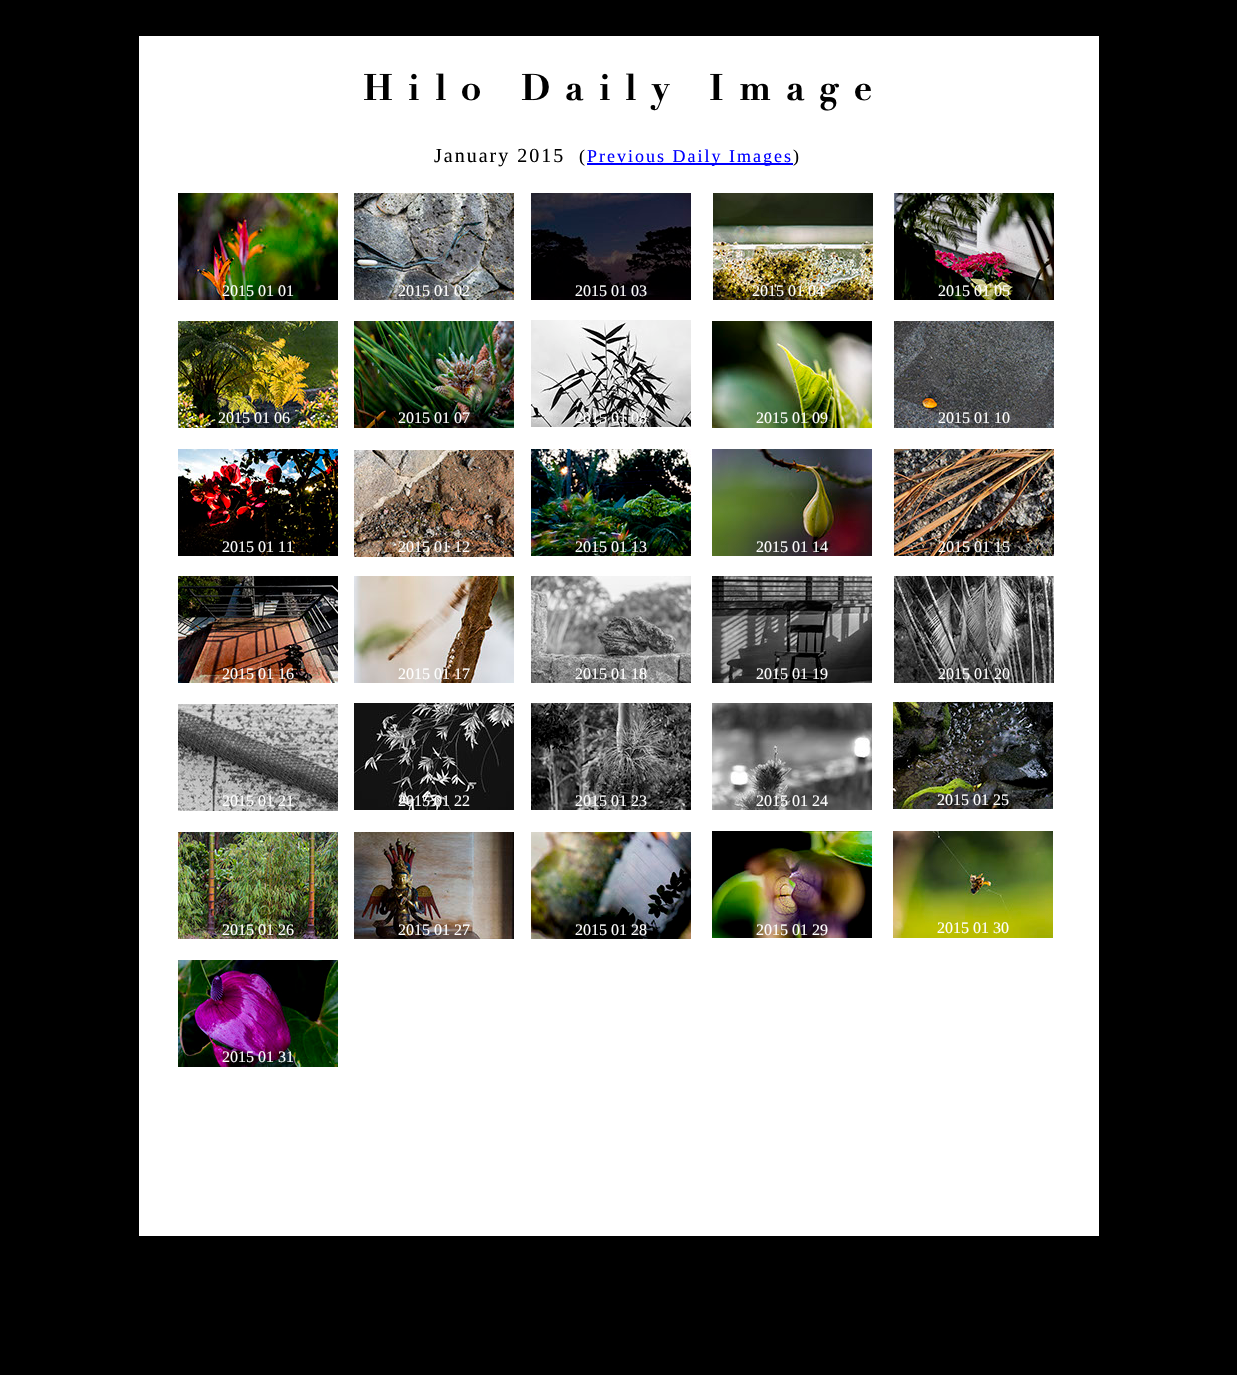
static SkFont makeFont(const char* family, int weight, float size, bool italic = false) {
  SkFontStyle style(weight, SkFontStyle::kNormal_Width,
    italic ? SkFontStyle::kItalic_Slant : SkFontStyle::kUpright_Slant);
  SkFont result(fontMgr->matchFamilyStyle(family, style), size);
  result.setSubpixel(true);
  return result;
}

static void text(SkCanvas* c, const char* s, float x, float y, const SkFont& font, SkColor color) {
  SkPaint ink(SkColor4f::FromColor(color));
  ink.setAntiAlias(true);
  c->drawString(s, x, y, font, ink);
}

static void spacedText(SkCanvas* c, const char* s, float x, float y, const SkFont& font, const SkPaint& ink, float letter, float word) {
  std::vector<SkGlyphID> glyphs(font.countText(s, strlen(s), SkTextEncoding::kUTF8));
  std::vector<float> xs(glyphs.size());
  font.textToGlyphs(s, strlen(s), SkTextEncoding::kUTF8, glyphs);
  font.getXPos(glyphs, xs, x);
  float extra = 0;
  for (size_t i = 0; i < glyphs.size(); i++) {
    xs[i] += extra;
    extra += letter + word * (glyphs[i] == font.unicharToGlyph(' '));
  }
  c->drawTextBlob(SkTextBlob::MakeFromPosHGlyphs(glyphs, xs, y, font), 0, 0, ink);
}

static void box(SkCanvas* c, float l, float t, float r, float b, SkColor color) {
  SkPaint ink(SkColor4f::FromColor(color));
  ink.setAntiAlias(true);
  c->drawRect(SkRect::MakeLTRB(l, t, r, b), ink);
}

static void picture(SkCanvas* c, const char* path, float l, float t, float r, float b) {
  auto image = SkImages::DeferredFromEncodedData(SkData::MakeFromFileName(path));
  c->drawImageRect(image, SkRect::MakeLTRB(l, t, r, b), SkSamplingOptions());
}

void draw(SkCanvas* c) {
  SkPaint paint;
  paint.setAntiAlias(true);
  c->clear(0xff000000);
  box(c, 139, 36, 1099, 1236, 0xffffffff);
  picture(c, "img_01.png", 364, 73, 871, 111);
  SkFont face1 = makeFont("Liberation Serif", 400, 20);
  paint.setColor(0xff000000);
  spacedText(c, "January 2015", 434, 162, face1, paint, 2, 0);
  SkFont face2 = makeFont("Liberation Serif", 400, 18);
  spacedText(c, "(", 579, 162, face2, paint, 2, 0);
  box(c, 587, 163, 793, 165, 0xff0000ff);
  paint.setColor(0xff0000ff);
  spacedText(c, "Previous Daily Images", 587, 162, face2, paint, 2, 0);
  paint.setColor(0xff000000);
  spacedText(c, ")", 793, 162, face2, paint, 2, 0);
  picture(c, "img_02.png", 178, 193, 338, 300);
  picture(c, "img_03.png", 531, 193, 691, 300);
  picture(c, "img_04.png", 894, 193, 1054, 300);
  SkFont face3 = makeFont("Liberation Serif", 400, 16);
  text(c, "2015 01 01", 222, 296, face3, 0xffffffff);
  picture(c, "img_05.png", 354, 193, 514, 300);
  text(c, "2015 01 02", 398, 296, face3, 0xffffffff);
  text(c, "2015 01 03", 575, 296, face3, 0xffffffff);
  picture(c, "img_06.png", 713, 193, 873, 300);
  text(c, "2015 01 04", 752, 296, face3, 0xffffffff);
  text(c, "2015 01 05", 938, 296, face3, 0xffffffff);
  picture(c, "img_07.png", 178, 321, 338, 428);
  picture(c, "img_08.png", 531, 320, 691, 427);
  picture(c, "img_09.png", 894, 321, 1054, 428);
  text(c, "2015 01 06", 218, 423, face3, 0xffffffff);
  picture(c, "img_10.png", 354, 321, 514, 428);
  text(c, "2015 01 07", 398, 423, face3, 0xffffffff);
  text(c, "2015 01 08", 575, 423, face3, 0xffffffff);
  picture(c, "img_11.png", 712, 321, 872, 428);
  text(c, "2015 01 09", 756, 423, face3, 0xffffffff);
  text(c, "2015 01 10", 938, 423, face3, 0xffffffff);
  picture(c, "img_12.png", 178, 449, 338, 556);
  picture(c, "img_13.png", 531, 449, 691, 556);
  picture(c, "img_14.png", 894, 449, 1054, 556);
  text(c, "2015 01 11", 222, 552, face3, 0xffffffff);
  picture(c, "img_15.png", 354, 450, 514, 557);
  text(c, "2015 01 12", 398, 552, face3, 0xffffffff);
  text(c, "2015 01 13", 575, 552, face3, 0xffffffff);
  picture(c, "img_16.png", 712, 449, 872, 556);
  text(c, "2015 01 14", 756, 552, face3, 0xffffffff);
  text(c, "2015 01 15", 938, 552, face3, 0xffffffff);
  picture(c, "img_17.png", 178, 576, 338, 683);
  picture(c, "img_18.png", 531, 576, 691, 683);
  picture(c, "img_19.png", 894, 576, 1054, 683);
  text(c, "2015 01 16", 222, 679, face3, 0xffffffff);
  picture(c, "img_20.png", 354, 576, 514, 683);
  text(c, "2015 01 17", 398, 679, face3, 0xffffffff);
  text(c, "2015 01 18", 575, 679, face3, 0xffffffff);
  picture(c, "img_21.png", 712, 576, 872, 683);
  text(c, "2015 01 19", 756, 679, face3, 0xffffffff);
  text(c, "2015 01 20", 938, 679, face3, 0xffffffff);
  picture(c, "img_22.png", 178, 704, 338, 811);
  picture(c, "img_23.png", 531, 703, 691, 810);
  picture(c, "img_24.png", 893, 702, 1053, 809);
  text(c, "2015 01 21", 222, 806, face3, 0xffffffff);
  picture(c, "img_25.png", 354, 703, 514, 810);
  text(c, "2015 01 22", 398, 806, face3, 0xffffffff);
  text(c, "2015 01 23", 575, 806, face3, 0xffffffff);
  picture(c, "img_26.png", 712, 703, 872, 810);
  text(c, "2015 01 24", 756, 806, face3, 0xffffffff);
  text(c, "2015 01 25", 937, 805, face3, 0xffffffff);
  picture(c, "img_27.png", 178, 832, 338, 939);
  picture(c, "img_28.png", 531, 832, 691, 939);
  picture(c, "img_29.png", 893, 831, 1053, 938);
  text(c, "2015 01 26", 222, 935, face3, 0xffffffff);
  picture(c, "img_30.png", 354, 832, 514, 939);
  text(c, "2015 01 27", 398, 935, face3, 0xffffffff);
  text(c, "2015 01 28", 575, 935, face3, 0xffffffff);
  picture(c, "img_31.png", 712, 831, 872, 938);
  text(c, "2015 01 29", 756, 935, face3, 0xffffffff);
  text(c, "2015 01 30", 937, 933, face3, 0xffffffff);
  picture(c, "img_32.png", 178, 960, 338, 1067);
  text(c, "2015 01 31", 222, 1062, face3, 0xffffffff);
}
